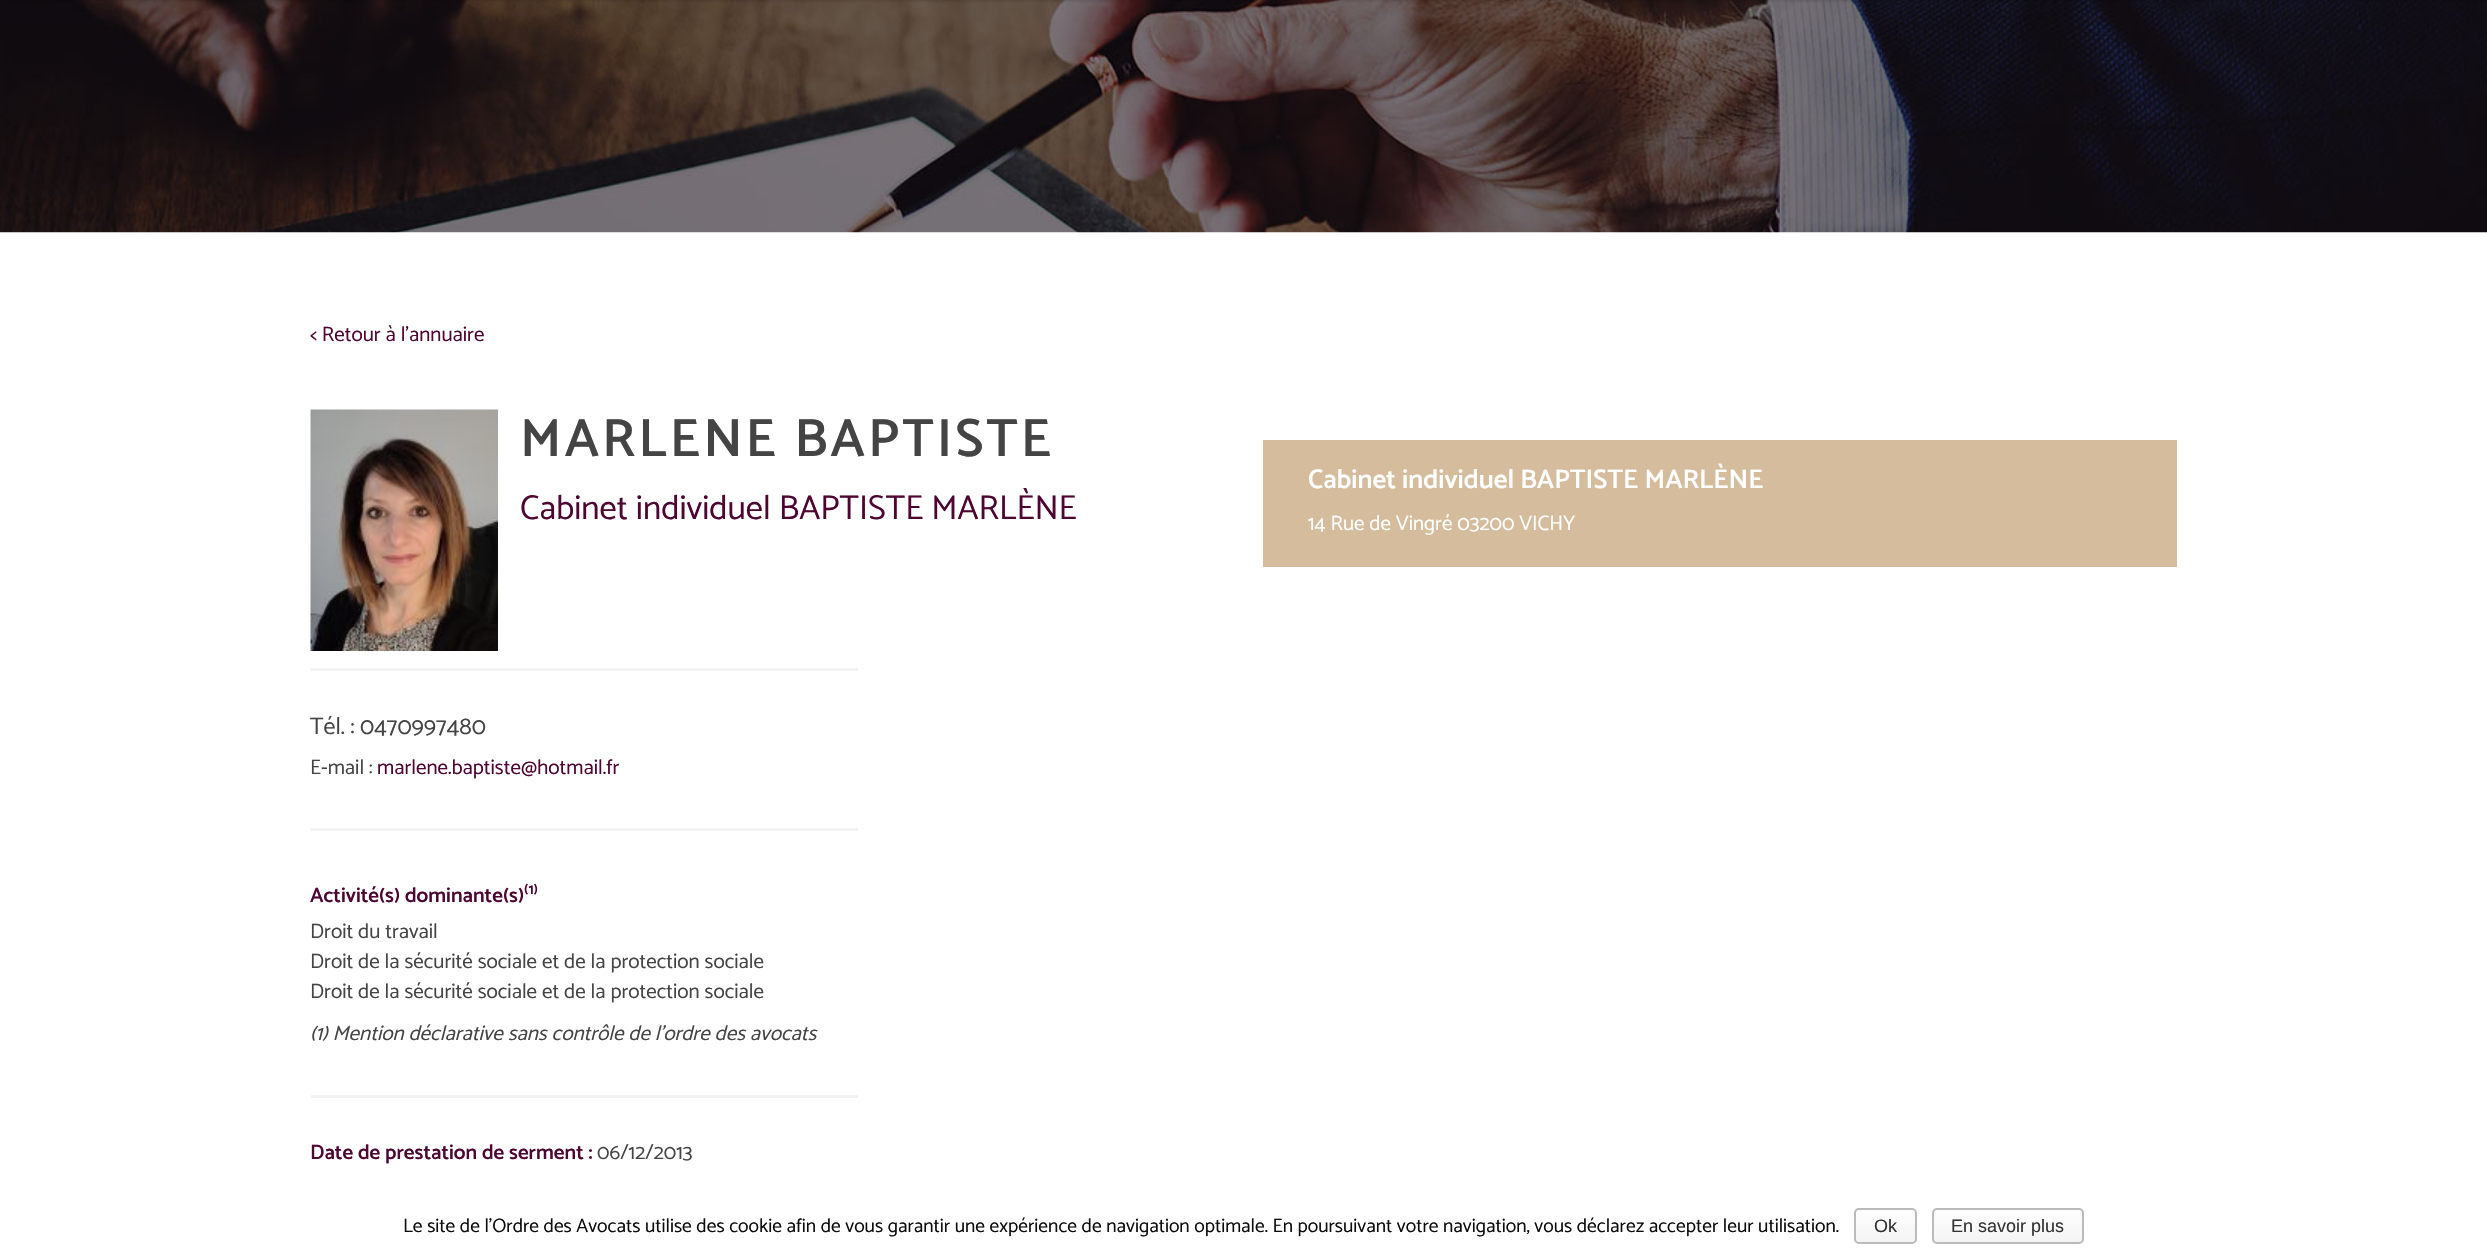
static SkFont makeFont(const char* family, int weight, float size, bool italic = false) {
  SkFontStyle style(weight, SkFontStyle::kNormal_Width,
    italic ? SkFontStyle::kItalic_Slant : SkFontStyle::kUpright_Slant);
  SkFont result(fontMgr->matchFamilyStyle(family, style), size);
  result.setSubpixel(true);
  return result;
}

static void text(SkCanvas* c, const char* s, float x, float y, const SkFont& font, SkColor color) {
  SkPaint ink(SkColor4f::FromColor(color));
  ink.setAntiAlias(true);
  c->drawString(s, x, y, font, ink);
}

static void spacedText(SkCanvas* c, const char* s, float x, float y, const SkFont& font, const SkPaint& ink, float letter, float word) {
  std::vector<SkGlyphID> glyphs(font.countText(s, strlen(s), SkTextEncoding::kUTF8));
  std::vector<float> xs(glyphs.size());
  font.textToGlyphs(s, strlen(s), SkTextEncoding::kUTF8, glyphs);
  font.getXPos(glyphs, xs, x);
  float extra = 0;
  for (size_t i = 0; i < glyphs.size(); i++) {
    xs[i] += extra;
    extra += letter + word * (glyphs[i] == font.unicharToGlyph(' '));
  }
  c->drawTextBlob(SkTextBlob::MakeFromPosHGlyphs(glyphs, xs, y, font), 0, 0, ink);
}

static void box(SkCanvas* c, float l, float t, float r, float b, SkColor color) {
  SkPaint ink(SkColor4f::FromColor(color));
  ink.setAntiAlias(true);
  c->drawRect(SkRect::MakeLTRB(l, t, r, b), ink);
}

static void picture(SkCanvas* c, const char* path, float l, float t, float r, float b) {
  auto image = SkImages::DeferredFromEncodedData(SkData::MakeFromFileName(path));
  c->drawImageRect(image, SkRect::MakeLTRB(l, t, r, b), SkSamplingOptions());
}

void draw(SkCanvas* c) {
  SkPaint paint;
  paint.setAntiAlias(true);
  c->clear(0xffffffff);
  picture(c, "img_01.png", 0, 0, 2487, 233);
  paint.setColor(0x38000000);
  paint.setMaskFilter(SkMaskFilter::MakeBlur(kNormal_SkBlurStyle, 2));
  c->drawRect(SkRect::MakeLTRB(0, -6, 2487, 0), paint);
  paint.setMaskFilter(nullptr);
  SkFont face1 = makeFont("Catamaran", 400, 21);
  text(c, "< Retour à l’annuaire", 310, 341, face1, 0xff4e0532);
  picture(c, "img_02.png", 310, 409, 498, 651);
  SkFont face2 = makeFont("Catamaran", 600, 54);
  paint.setColor(0xff444444);
  spacedText(c, "MARLENE BAPTISTE", 520, 456, face2, paint, 3, 0);
  SkFont face3 = makeFont("Catamaran", 400, 34.5f);
  text(c, "Cabinet individuel BAPTISTE MARLÈNE", 520, 519, face3, 0xff4e0532);
  box(c, 311, 668, 858, 671, 0xfff2f2f2);
  SkFont face4 = makeFont("Catamaran", 400, 24);
  text(c, "Tél. : 0470997480", 310, 734, face4, 0xff444444);
  text(c, "E-mail :", 310, 774, face1, 0xff444444);
  text(c, "marlene.baptiste@hotmail.fr", 377, 774, face1, 0xff4e0532);
  box(c, 311, 828, 858, 831, 0xfff2f2f2);
  SkFont face5 = makeFont("Catamaran", 600, 21);
  text(c, "Activité(s) dominante(s)", 310, 902, face5, 0xff4e0532);
  SkFont face6 = makeFont("Catamaran", 600, 15);
  text(c, "(1)", 524, 894, face6, 0xff4e0532);
  text(c, "Droit du travail", 310, 938, face1, 0xff444444);
  text(c, "Droit de la sécurité sociale et de la protection sociale", 310, 968, face1, 0xff444444);
  text(c, "Droit de la sécurité sociale et de la protection sociale", 310, 998, face1, 0xff444444);
  SkFont face7 = makeFont("Catamaran", 400, 21, true);
  text(c, "(1) Mention déclarative sans contrôle de l'ordre des avocats", 310, 1040, face7, 0xff444444);
  box(c, 311, 1095, 858, 1098, 0xfff2f2f2);
  text(c, "Date de prestation de serment :", 310, 1159, face5, 0xff4e0532);
  text(c, "06/12/2013", 597, 1159, face1, 0xff444444);
  box(c, 1263, 440, 2177, 567, 0xffd5bc9d);
  SkFont face8 = makeFont("Catamaran", 600, 27);
  text(c, "Cabinet individuel BAPTISTE MARLÈNE", 1308, 488, face8, 0xffffffff);
  text(c, "14 Rue de Vingré 03200 VICHY", 1308, 530, face1, 0xffffffff);
  SkFont face9 = makeFont("Catamaran", 400, 19.5f);
  text(c, "Le site de l'Ordre des Avocats utilise des cookie afin de vous garantir une expérience de navigation optimale. En poursuivant votre navigation, vous déclarez accepter leur utilisation.", 403, 1232, face9, 0xff0c0c0c);
  c->save();
  c->clipPath(SkPathBuilder().moveTo(1859, 1208).lineTo(1912, 1208).cubicTo(1915, 1208, 1917, 1210, 1917, 1213).lineTo(1917, 1239).cubicTo(1917, 1242, 1915, 1244, 1912, 1244).lineTo(1859, 1244).cubicTo(1856, 1244, 1854, 1242, 1854, 1239).lineTo(1854, 1213).cubicTo(1854, 1210, 1856, 1208, 1859, 1208).close().detach(), true);
  {
    const SkColor colors[] = {0xfffefefe, 0xfff4f4f4};
    const float stops[] = {0, 1};
    const SkPoint ends[] = {{1886, 1209}, {1886, 1242}};
    paint.setShader(SkGradientShader::MakeLinear(ends, colors, stops, 2, SkTileMode::kClamp));
    paint.setAlpha(255);
  }
  c->drawRect(SkRect::MakeLTRB(1854, 1209, 1917, 1242), paint);
  c->restore();
  paint.setStyle(SkPaint::kStroke_Style);
  paint.setStrokeWidth(2);
  paint.setShader(nullptr);
  paint.setColor(0xffbbbbbb);
  c->drawRoundRect(SkRect::MakeLTRB(1855, 1209, 1916, 1243), 4, 4, paint);
  SkFont face10 = makeFont("Liberation Sans", 400, 18);
  text(c, "Ok", 1874, 1232, face10, 0xff333333);
  c->save();
  c->clipPath(SkPathBuilder().moveTo(1937, 1208).lineTo(2079, 1208).cubicTo(2082, 1208, 2084, 1210, 2084, 1213).lineTo(2084, 1239).cubicTo(2084, 1242, 2082, 1244, 2079, 1244).lineTo(1937, 1244).cubicTo(1934, 1244, 1932, 1242, 1932, 1239).lineTo(1932, 1213).cubicTo(1932, 1210, 1934, 1208, 1937, 1208).close().detach(), true);
  paint.setStyle(SkPaint::kFill_Style);
  {
    const SkColor colors[] = {0xfffefefe, 0xfff4f4f4};
    const float stops[] = {0, 1};
    const SkPoint ends[] = {{2008, 1209}, {2008, 1242}};
    paint.setShader(SkGradientShader::MakeLinear(ends, colors, stops, 2, SkTileMode::kClamp));
    paint.setAlpha(255);
  }
  c->drawRect(SkRect::MakeLTRB(1932, 1209, 2084, 1242), paint);
  c->restore();
  paint.setStyle(SkPaint::kStroke_Style);
  paint.setShader(nullptr);
  paint.setColor(0xffbbbbbb);
  c->drawRoundRect(SkRect::MakeLTRB(1933, 1209, 2083, 1243), 4, 4, paint);
  text(c, "En savoir plus", 1951, 1232, face10, 0xff333333);
}
